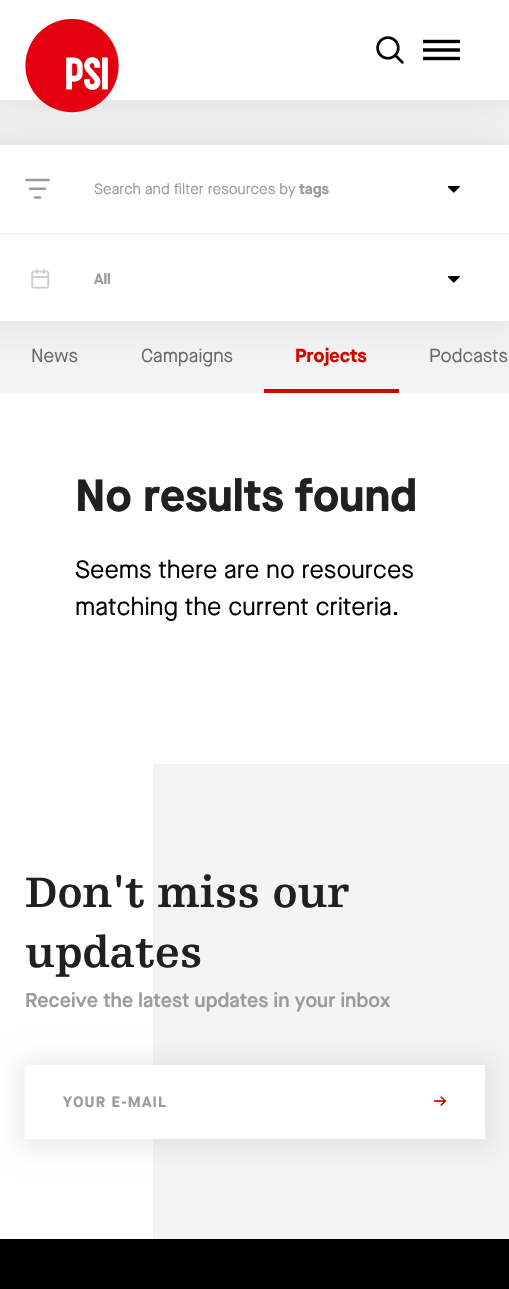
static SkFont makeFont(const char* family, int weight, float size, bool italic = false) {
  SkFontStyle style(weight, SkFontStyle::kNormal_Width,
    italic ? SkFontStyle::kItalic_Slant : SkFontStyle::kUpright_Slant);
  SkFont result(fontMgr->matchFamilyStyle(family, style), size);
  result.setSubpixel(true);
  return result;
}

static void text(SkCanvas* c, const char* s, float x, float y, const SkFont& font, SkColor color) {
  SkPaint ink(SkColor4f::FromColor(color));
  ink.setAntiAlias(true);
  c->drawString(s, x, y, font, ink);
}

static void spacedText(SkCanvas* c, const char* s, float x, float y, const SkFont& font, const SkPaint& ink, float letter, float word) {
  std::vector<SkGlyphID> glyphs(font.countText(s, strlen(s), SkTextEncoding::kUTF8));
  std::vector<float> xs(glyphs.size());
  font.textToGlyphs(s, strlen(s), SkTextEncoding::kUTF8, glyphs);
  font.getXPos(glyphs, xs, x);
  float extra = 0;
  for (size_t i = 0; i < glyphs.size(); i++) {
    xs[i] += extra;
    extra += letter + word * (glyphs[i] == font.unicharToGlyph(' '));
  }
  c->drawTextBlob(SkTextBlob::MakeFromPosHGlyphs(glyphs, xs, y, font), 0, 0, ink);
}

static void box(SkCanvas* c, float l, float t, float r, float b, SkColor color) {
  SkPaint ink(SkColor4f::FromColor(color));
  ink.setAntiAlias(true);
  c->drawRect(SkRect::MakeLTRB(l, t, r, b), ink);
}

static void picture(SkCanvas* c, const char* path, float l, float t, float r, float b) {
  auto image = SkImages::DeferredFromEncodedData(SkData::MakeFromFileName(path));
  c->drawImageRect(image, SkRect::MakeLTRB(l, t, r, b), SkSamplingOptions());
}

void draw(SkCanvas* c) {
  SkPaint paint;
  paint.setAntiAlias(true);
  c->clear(0xffffffff);
  box(c, 0, 100, 509, 393, 0xfff4f4f4);
  box(c, 0, 145, 509, 321, 0xffffffff);
  paint.setColor(0x1a000000);
  paint.setMaskFilter(SkMaskFilter::MakeBlur(kNormal_SkBlurStyle, 19));
  c->drawRect(SkRect::MakeLTRB(0, 0, 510, 100), paint);
  paint.setMaskFilter(nullptr);
  c->save();
  c->clipPath(SkPathBuilder(SkPathFillType::kEvenOdd).moveTo(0, 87).lineTo(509, 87).lineTo(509, 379).lineTo(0, 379).close().moveTo(-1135, 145).lineTo(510, 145).lineTo(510, 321).lineTo(-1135, 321).close().detach(), true);
  paint.setMaskFilter(SkMaskFilter::MakeBlur(kNormal_SkBlurStyle, 19));
  c->drawRect(SkRect::MakeLTRB(-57, 145, 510, 321), paint);
  paint.setMaskFilter(nullptr);
  c->restore();
  box(c, 0, 0, 509, 100, 0xffffffff);
  picture(c, "img_01.png", 25, 19, 119, 113);
  picture(c, "img_02.png", 376, 36, 404, 64);
  picture(c, "img_03.png", 423, 39, 460, 61);
  picture(c, "img_04.png", 25, 178, 50, 199);
  SkFont face1 = makeFont("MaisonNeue", 400, 15);
  text(c, "Search and filter resources by", 94, 194, face1, 0xff9b9b9b);
  SkFont face2 = makeFont("MaisonNeue", 700, 15);
  text(c, "tags", 299, 194, face2, 0xff9b9b9b);
  picture(c, "img_05.png", 448, 186, 460, 193);
  box(c, 0, 233, 509, 235, 0xfff4f4f4);
  picture(c, "img_06.png", 31, 269, 50, 289);
  text(c, "All", 94, 284, face2, 0xff9b9b9b);
  picture(c, "img_05.png", 448, 276, 460, 283);
  SkFont face3 = makeFont("MaisonNeue", 400, 18.75f);
  text(c, "News", 31, 362, face3, 0xff686868);
  text(c, "Campaigns", 141, 362, face3, 0xff686868);
  box(c, 264, 389, 399, 393, 0xffd20500);
  SkFont face4 = makeFont("MaisonNeue", 700, 18.75f);
  text(c, "Projects", 295, 362, face4, 0xffd20500);
  text(c, "Podcasts", 429, 362, face3, 0xff686868);
  SkFont face5 = makeFont("MaisonNeue", 700, 45);
  text(c, "No results found", 75, 511, face5, 0xff202020);
  SkFont face6 = makeFont("MaisonNeue", 400, 25);
  text(c, "Seems there are no resources", 75, 578, face6, 0xff000000);
  text(c, "matching the current criteria.", 75, 615, face6, 0xff000000);
  box(c, 153, 764, 509, 1239, 0xfff4f4f4);
  SkFont face7 = makeFont("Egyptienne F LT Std", 700, 45);
  text(c, "Don't miss our", 25, 907, face7, 0xff202020);
  text(c, "updates", 25, 967, face7, 0xff202020);
  SkFont face8 = makeFont("MaisonNeue", 600, 20);
  text(c, "Receive the latest updates in your inbox", 25, 1007, face8, 0xff9b9b9b);
  paint.setColor(0x12000000);
  paint.setMaskFilter(SkMaskFilter::MakeBlur(kNormal_SkBlurStyle, 11));
  c->drawRect(SkRect::MakeLTRB(18, 1060, 493, 1149), paint);
  paint.setMaskFilter(nullptr);
  box(c, 25, 1065, 485, 1139, 0xffffffff);
  paint.setColor(0xff9b9b9b);
  spacedText(c, "YOUR E-MAIL", 63, 1107, face2, paint, 1.25f, 0);
  SkFont face9 = makeFont("MaisonNeue", 400, 20);
  text(c, "→", 433, 1108, face9, 0xffd20500);
  box(c, 0, 1239, 509, 1289, 0xff000000);
}
